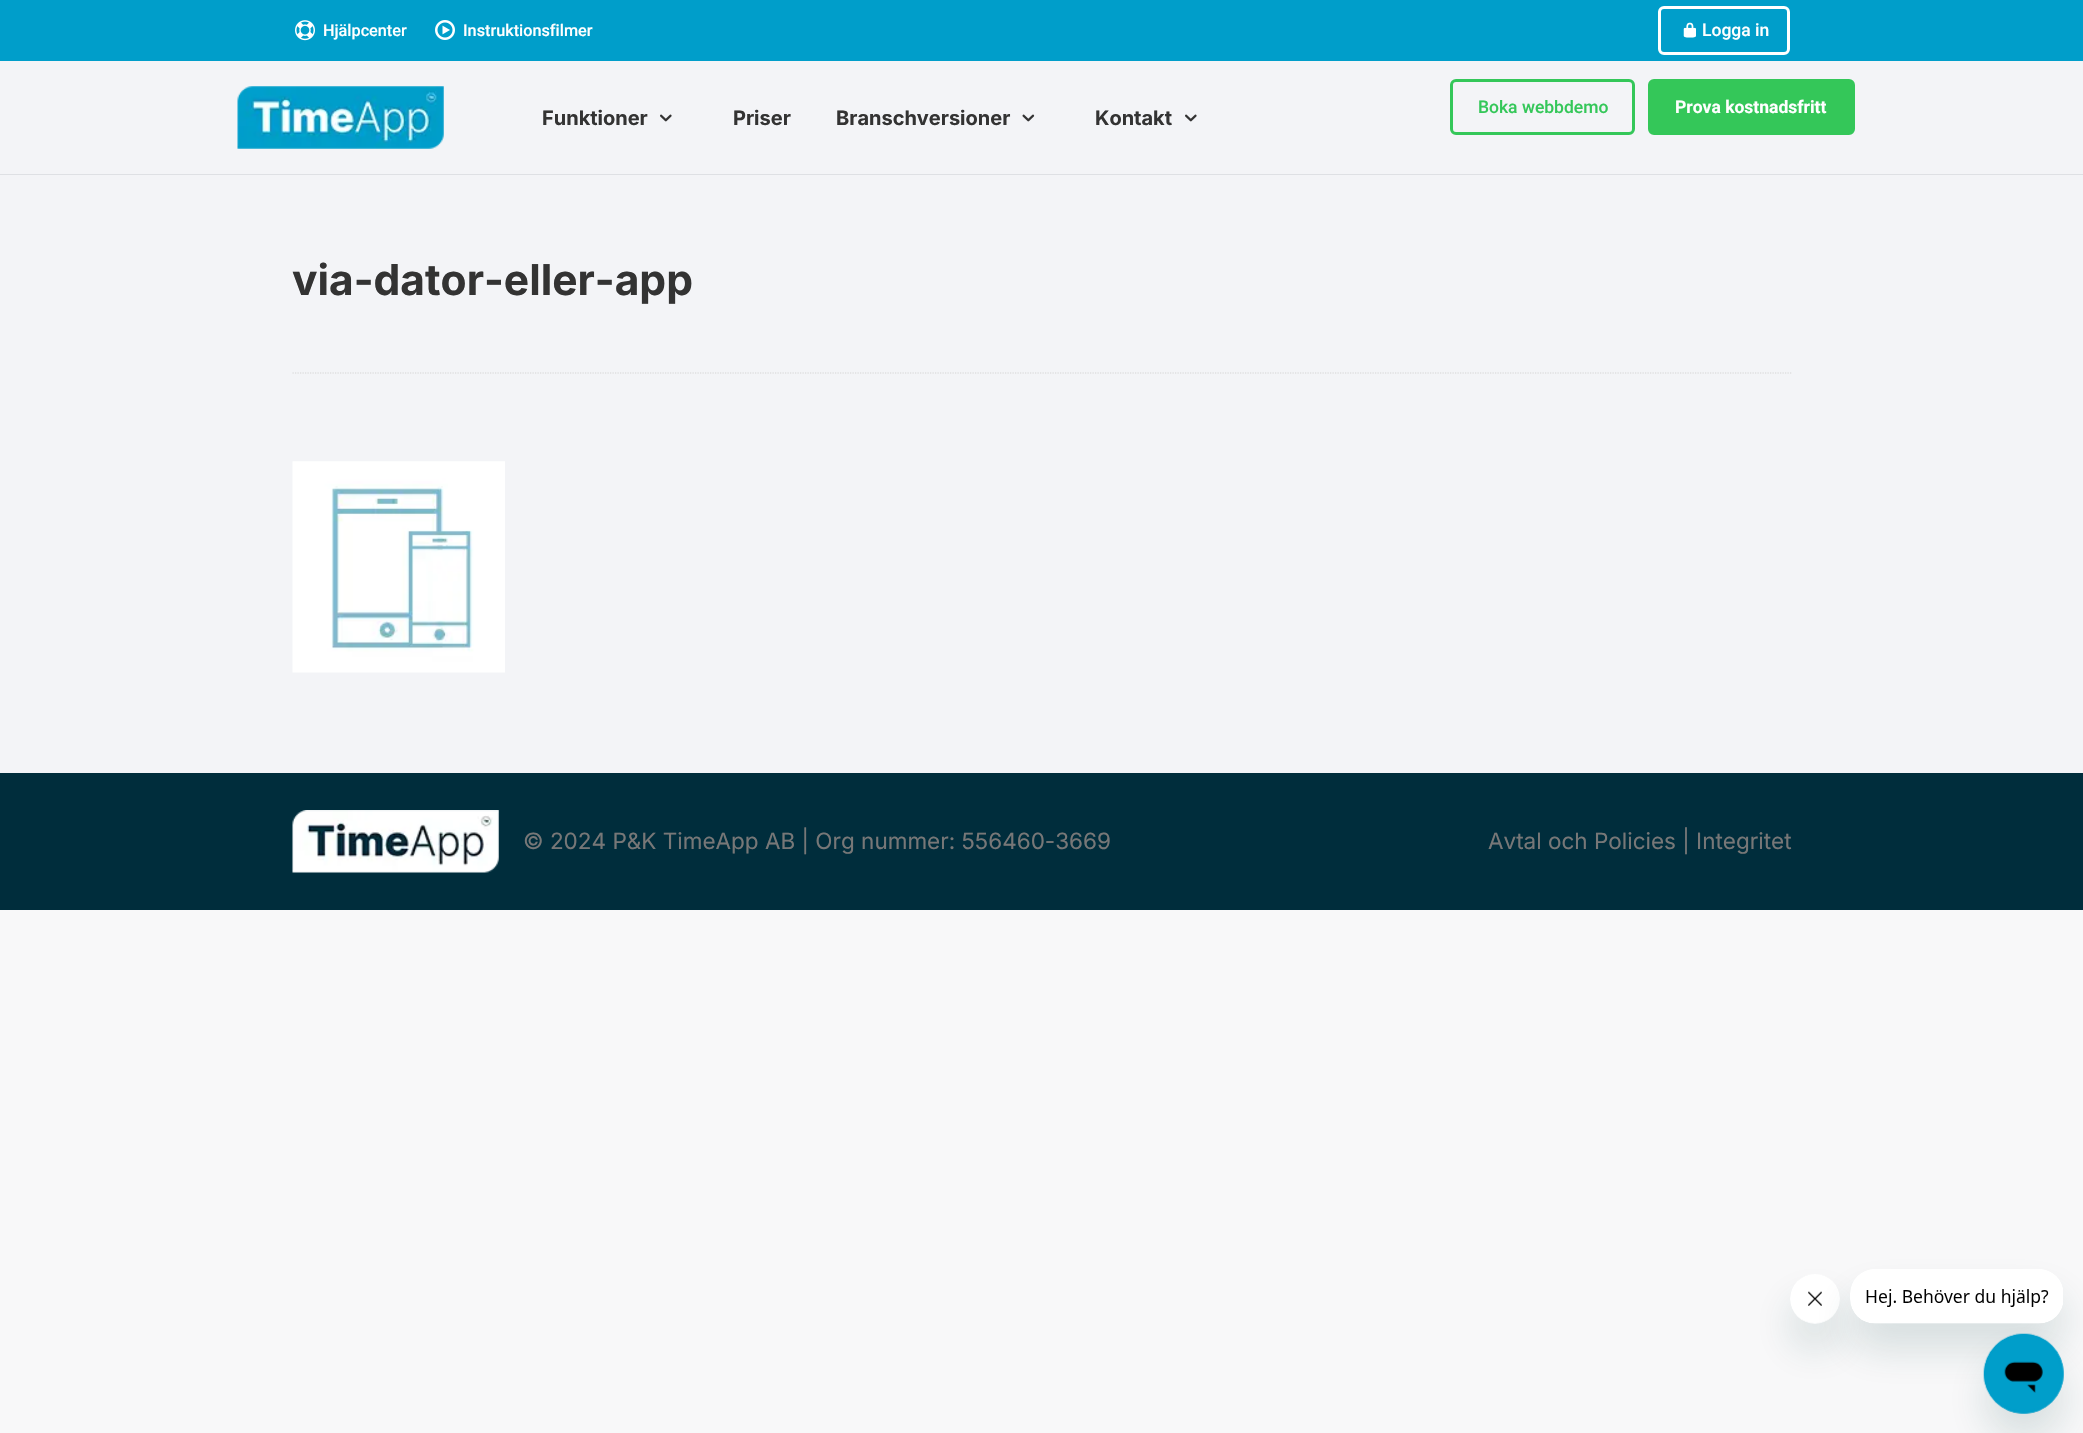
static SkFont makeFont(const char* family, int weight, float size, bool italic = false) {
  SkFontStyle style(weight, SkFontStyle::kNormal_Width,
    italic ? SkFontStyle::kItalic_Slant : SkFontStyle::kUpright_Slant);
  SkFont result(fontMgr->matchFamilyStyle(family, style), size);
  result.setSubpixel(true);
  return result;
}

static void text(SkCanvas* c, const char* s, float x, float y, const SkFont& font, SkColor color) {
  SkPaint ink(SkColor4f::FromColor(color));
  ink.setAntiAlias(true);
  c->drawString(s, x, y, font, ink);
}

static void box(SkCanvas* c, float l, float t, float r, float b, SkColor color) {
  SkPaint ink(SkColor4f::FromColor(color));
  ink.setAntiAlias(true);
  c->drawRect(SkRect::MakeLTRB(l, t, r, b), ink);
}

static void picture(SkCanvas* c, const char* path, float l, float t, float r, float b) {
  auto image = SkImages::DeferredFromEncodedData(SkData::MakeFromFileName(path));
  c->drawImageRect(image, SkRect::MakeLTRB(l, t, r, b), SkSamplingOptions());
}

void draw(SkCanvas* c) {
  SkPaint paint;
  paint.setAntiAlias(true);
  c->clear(0xfff8f8f9);
  box(c, 0, 61, 2083, 773, 0xfff3f4f7);
  box(c, 0, 174, 2083, 175, 0xffdee0e4);
  box(c, 0, 0, 2083, 61, 0xff009eca);
  picture(c, "img_01.png", 295, 20, 315, 41);
  SkFont face1 = makeFont("Roboto", 500, 16.25f);
  text(c, "Hjälpcenter", 323, 36, face1, 0xffffffff);
  picture(c, "img_02.png", 435, 20, 455, 40);
  text(c, "Instruktionsfilmer", 463, 36, face1, 0xffffffff);
  paint.setStyle(SkPaint::kStroke_Style);
  paint.setStrokeWidth(3);
  paint.setColor(0xffffffff);
  c->drawRoundRect(SkRect::MakeLTRB(1659.5f, 7.5f, 1788.5f, 53.5f), 4.5f, 4.5f, paint);
  picture(c, "img_03.png", 1683, 22, 1696, 38);
  SkFont face2 = makeFont("Roboto", 500, 17.5f);
  text(c, "Logga in", 1702, 36, face2, 0xffffffff);
  picture(c, "img_04.png", 237, 86, 444, 149);
  paint.setColor(0xff34c759);
  c->drawRoundRect(SkRect::MakeLTRB(1451.5f, 80.5f, 1633.5f, 133.5f), 4.5f, 4.5f, paint);
  text(c, "Boka webbdemo", 1478, 113, face2, 0xff34c759);
  paint.setStyle(SkPaint::kFill_Style);
  c->drawRoundRect(SkRect::MakeLTRB(1649.5f, 80.5f, 1853.5f, 133.5f), 4.5f, 4.5f, paint);
  paint.setStyle(SkPaint::kStroke_Style);
  c->drawRoundRect(SkRect::MakeLTRB(1649.5f, 80.5f, 1853.5f, 133.5f), 4.5f, 4.5f, paint);
  SkFont face3 = makeFont("Roboto", 700, 17.5f);
  text(c, "Prova kostnadsfritt", 1675, 113, face3, 0xffffffff);
  SkFont face4 = makeFont("Inter", 700, 20);
  text(c, "Funktioner", 542, 125, face4, 0xff333333);
  picture(c, "img_05.png", 660, 114, 672, 122);
  text(c, "Priser", 733, 125, face4, 0xff333333);
  text(c, "Branschversioner", 836, 125, face4, 0xff333333);
  picture(c, "img_06.png", 1022, 114, 1035, 122);
  text(c, "Kontakt", 1095, 125, face4, 0xff333333);
  picture(c, "img_05.png", 1185, 114, 1197, 122);
  SkFont face5 = makeFont("Inter", 700, 42.5f);
  text(c, "via-dator-eller-app", 292, 295, face5, 0xff333333);
  paint.setStrokeWidth(1.2f);
  paint.setColor(0xffd5d5d5);
  paint.setPathEffect(SkDashPathEffect::Make({{1.25f, 1.25f}}, 0));
  c->drawPath(SkPathBuilder().moveTo(292.5f, 373).lineTo(1792.5f, 373).detach(), paint);
  paint.setPathEffect(nullptr);
  picture(c, "img_07.png", 292, 461, 505, 673);
  box(c, 0, 773, 2083, 910, 0xff002d3c);
  picture(c, "img_08.png", 292, 810, 499, 873);
  SkFont face6 = makeFont("Inter", 400, 22.5f);
  text(c, "© 2024 P&K TimeApp AB | Org nummer: 556460-3669", 523, 849, face6, 0xff777777);
  text(c, "Avtal och Policies | Integritet", 1488, 849, face6, 0xff777777);
  paint.setStyle(SkPaint::kFill_Style);
  paint.setColor(0x2617494d);
  paint.setMaskFilter(SkMaskFilter::MakeBlur(kNormal_SkBlurStyle, 19));
  c->drawRoundRect(SkRect::MakeLTRB(1790, 1299, 1840, 1349), 25, 25, paint);
  paint.setMaskFilter(nullptr);
  picture(c, "img_10.png", 1790, 1274, 1840, 1324);
  paint.setMaskFilter(SkMaskFilter::MakeBlur(kNormal_SkBlurStyle, 19));
  c->drawRoundRect(SkRect::MakeLTRB(1850, 1294, 2064, 1349), 25, 25, paint);
  paint.setMaskFilter(nullptr);
  picture(c, "img_09.png", 1850, 1269, 2063, 1324);
  paint.setMaskFilter(SkMaskFilter::MakeBlur(kNormal_SkBlurStyle, 19));
  c->drawRoundRect(SkRect::MakeLTRB(1984, 1359, 2064, 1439), 40, 40, paint);
  paint.setMaskFilter(nullptr);
  picture(c, "img_11.png", 1983, 1333, 2064, 1414);
}
